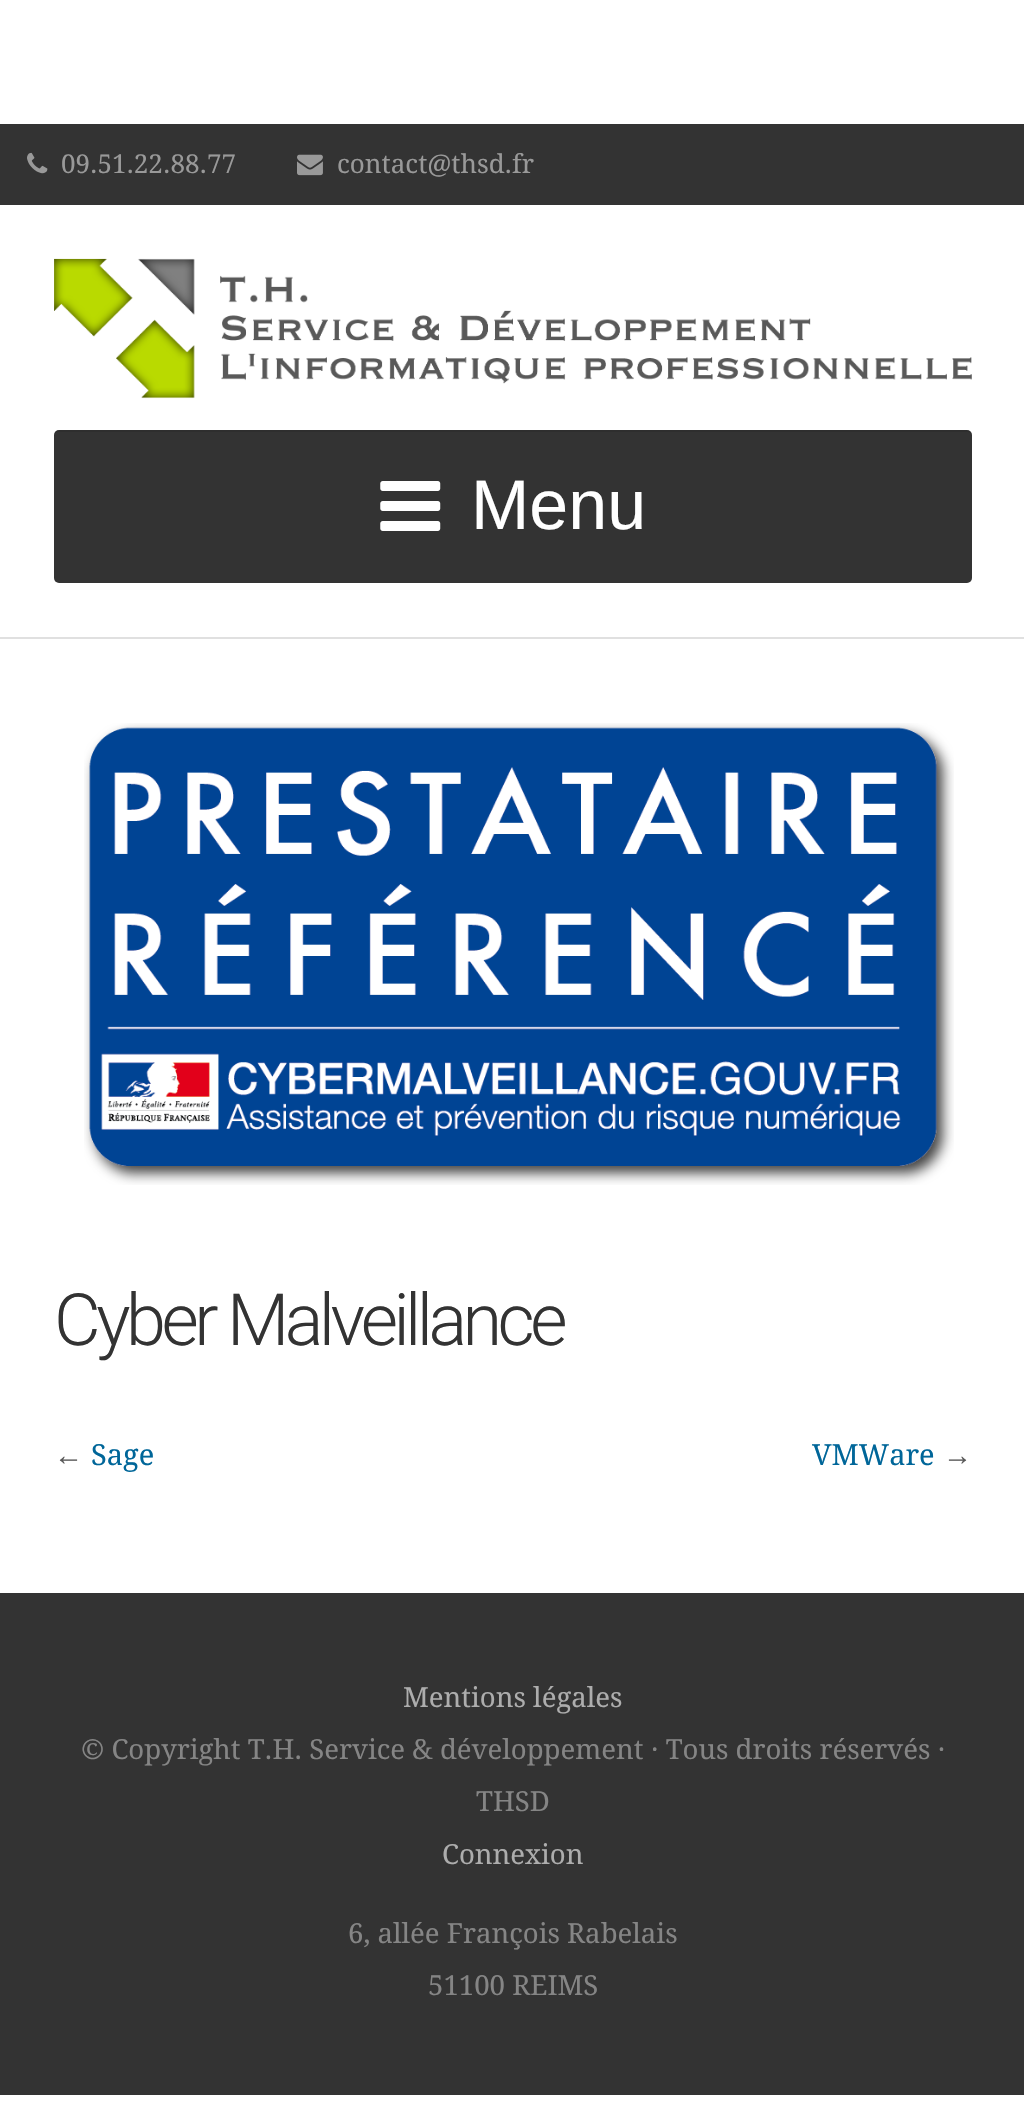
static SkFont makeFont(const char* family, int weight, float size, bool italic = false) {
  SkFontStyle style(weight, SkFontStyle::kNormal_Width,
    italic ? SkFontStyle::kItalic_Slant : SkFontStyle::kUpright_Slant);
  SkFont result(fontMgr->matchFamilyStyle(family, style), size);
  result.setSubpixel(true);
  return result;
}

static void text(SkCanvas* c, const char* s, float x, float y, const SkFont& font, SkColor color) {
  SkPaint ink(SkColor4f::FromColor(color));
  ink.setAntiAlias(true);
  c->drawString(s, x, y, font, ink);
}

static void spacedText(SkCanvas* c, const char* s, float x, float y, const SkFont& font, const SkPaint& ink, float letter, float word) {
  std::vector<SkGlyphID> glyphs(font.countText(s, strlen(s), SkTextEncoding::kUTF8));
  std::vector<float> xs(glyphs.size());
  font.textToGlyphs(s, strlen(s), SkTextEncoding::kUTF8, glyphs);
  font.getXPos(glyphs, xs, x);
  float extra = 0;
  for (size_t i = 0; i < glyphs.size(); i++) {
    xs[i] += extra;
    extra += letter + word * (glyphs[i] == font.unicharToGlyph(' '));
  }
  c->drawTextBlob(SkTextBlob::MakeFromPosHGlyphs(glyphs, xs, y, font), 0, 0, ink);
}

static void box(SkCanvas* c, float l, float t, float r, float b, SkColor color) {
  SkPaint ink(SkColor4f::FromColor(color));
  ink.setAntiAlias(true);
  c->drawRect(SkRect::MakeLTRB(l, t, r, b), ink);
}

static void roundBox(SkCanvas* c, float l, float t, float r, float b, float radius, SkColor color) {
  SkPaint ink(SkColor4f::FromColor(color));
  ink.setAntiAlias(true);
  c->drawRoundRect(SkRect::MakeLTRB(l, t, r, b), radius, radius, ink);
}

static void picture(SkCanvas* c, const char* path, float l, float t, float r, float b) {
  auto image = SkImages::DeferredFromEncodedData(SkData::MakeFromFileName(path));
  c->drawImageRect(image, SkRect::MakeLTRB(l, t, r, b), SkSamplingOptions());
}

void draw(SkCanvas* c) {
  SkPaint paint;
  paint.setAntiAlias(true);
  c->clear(0xffffffff);
  box(c, 0, 124, 1024, 205, 0xff333333);
  picture(c, "img_01.png", 27, 152, 48, 174);
  SkFont face1 = makeFont("Droid Serif", 400, 26);
  text(c, "09.51.22.88.77", 61, 173, face1, 0xff999999);
  picture(c, "img_02.png", 297, 154, 323, 176);
  text(c, "contact@thsd.fr", 337, 173, face1, 0xff999999);
  box(c, 0, 637, 1024, 639, 0xffe0e0e0);
  picture(c, "img_03.png", 54, 258, 972, 399);
  roundBox(c, 54, 430, 972, 583, 5, 0xff333333);
  paint.setColor(0x1a000000);
  c->drawPath(SkPathBuilder().moveTo(58, 432).lineTo(968, 432).cubicTo(970, 432, 972, 434, 972, 436).cubicTo(972, 433, 970, 430, 967, 430).lineTo(59, 430).cubicTo(56, 430, 54, 433, 54, 436).cubicTo(54, 434, 56, 432, 58, 432).close().detach(), paint);
  picture(c, "img_04.png", 380, 481, 441, 531);
  SkFont face2 = makeFont("Liberation Sans", 400, 70);
  text(c, "Menu", 471, 529, face2, 0xffffffff);
  picture(c, "img_05.png", 84, 723, 954, 1185);
  SkFont face3 = makeFont("Roboto", 300, 72);
  paint.setColor(0xff333333);
  spacedText(c, "Cyber Malveillance", 54, 1345, face3, paint, -4.5f, 0);
  SkFont face4 = makeFont("Liberation Sans", 400, 29);
  text(c, "←", 54, 1465, face4, 0xff595959);
  SkFont face5 = makeFont("Droid Serif", 400, 29);
  text(c, "Sage", 91, 1465, face5, 0xff006699);
  text(c, "VMWare", 812, 1465, face5, 0xff006699);
  text(c, "→", 943, 1465, face4, 0xff595959);
  box(c, 0, 1593, 1024, 2095, 0xff333333);
  SkFont face6 = makeFont("Droid Serif", 400, 27.55f);
  text(c, "Mentions légales", 403, 1707, face6, 0xffadadad);
  text(c, "© Copyright T.H. Service & développement · Tous droits réservés ·", 81, 1759, face6, 0xff858585);
  text(c, "THSD", 476, 1811, face6, 0xff858585);
  text(c, "Connexion", 442, 1864, face6, 0xffadadad);
  text(c, "6, allée François Rabelais", 348, 1943, face6, 0xff858585);
  text(c, "51100 REIMS", 428, 1995, face6, 0xff858585);
}
